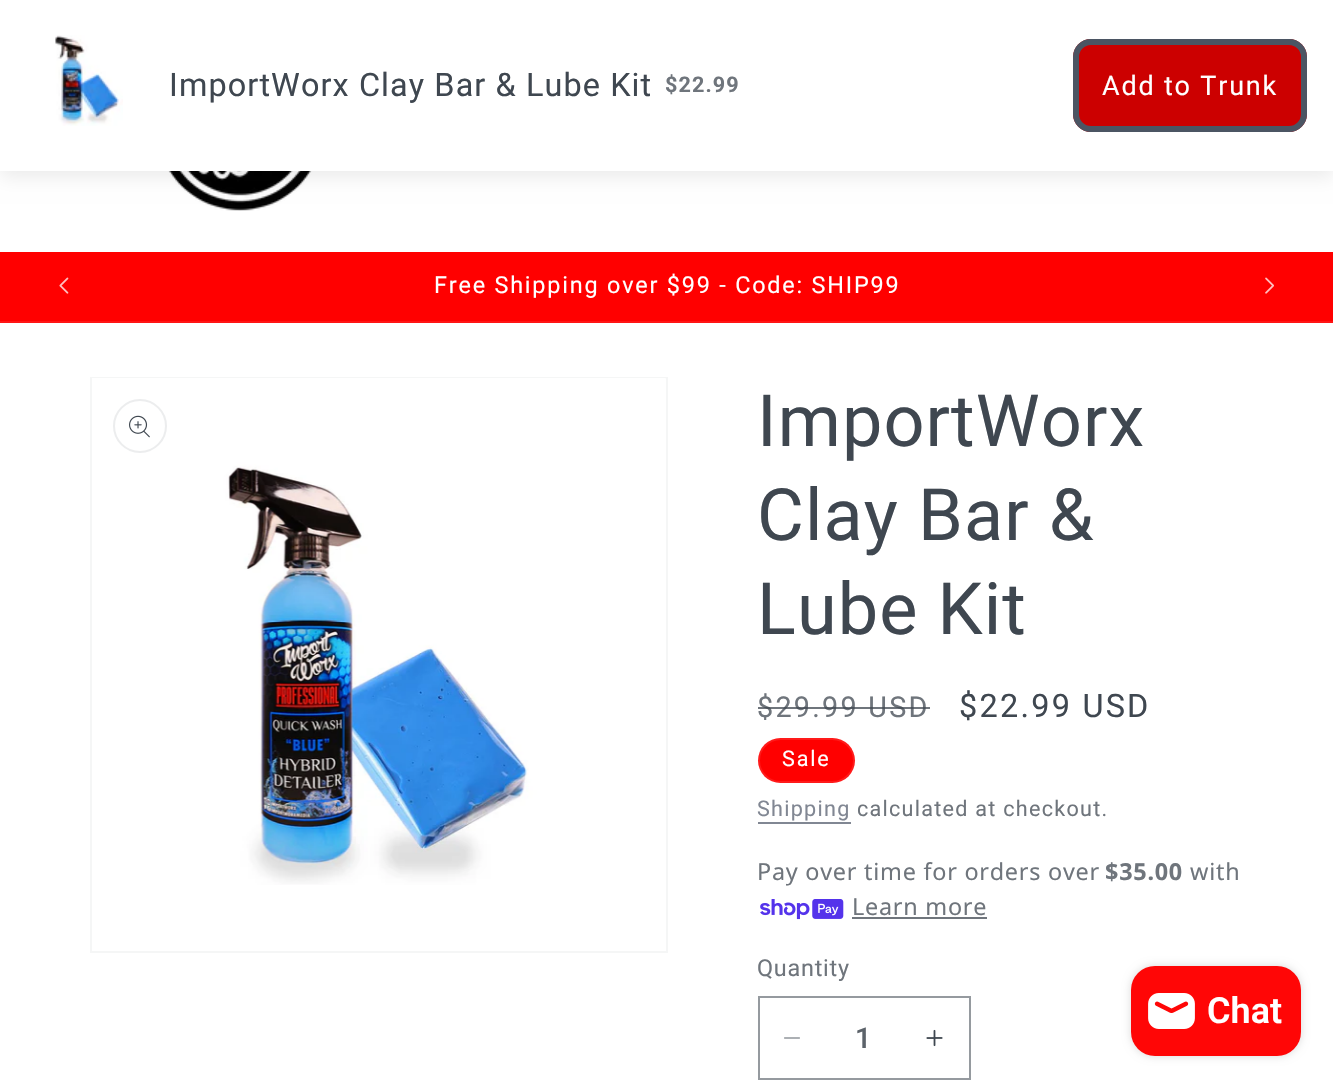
static SkFont makeFont(const char* family, int weight, float size, bool italic = false) {
  SkFontStyle style(weight, SkFontStyle::kNormal_Width,
    italic ? SkFontStyle::kItalic_Slant : SkFontStyle::kUpright_Slant);
  SkFont result(fontMgr->matchFamilyStyle(family, style), size);
  result.setSubpixel(true);
  return result;
}

static void text(SkCanvas* c, const char* s, float x, float y, const SkFont& font, SkColor color) {
  SkPaint ink(SkColor4f::FromColor(color));
  ink.setAntiAlias(true);
  c->drawString(s, x, y, font, ink);
}

static void spacedText(SkCanvas* c, const char* s, float x, float y, const SkFont& font, const SkPaint& ink, float letter, float word) {
  std::vector<SkGlyphID> glyphs(font.countText(s, strlen(s), SkTextEncoding::kUTF8));
  std::vector<float> xs(glyphs.size());
  font.textToGlyphs(s, strlen(s), SkTextEncoding::kUTF8, glyphs);
  font.getXPos(glyphs, xs, x);
  float extra = 0;
  for (size_t i = 0; i < glyphs.size(); i++) {
    xs[i] += extra;
    extra += letter + word * (glyphs[i] == font.unicharToGlyph(' '));
  }
  c->drawTextBlob(SkTextBlob::MakeFromPosHGlyphs(glyphs, xs, y, font), 0, 0, ink);
}

static void box(SkCanvas* c, float l, float t, float r, float b, SkColor color) {
  SkPaint ink(SkColor4f::FromColor(color));
  ink.setAntiAlias(true);
  c->drawRect(SkRect::MakeLTRB(l, t, r, b), ink);
}

static void roundBox(SkCanvas* c, float l, float t, float r, float b, float radius, SkColor color) {
  SkPaint ink(SkColor4f::FromColor(color));
  ink.setAntiAlias(true);
  c->drawRoundRect(SkRect::MakeLTRB(l, t, r, b), radius, radius, ink);
}

static void picture(SkCanvas* c, const char* path, float l, float t, float r, float b) {
  auto image = SkImages::DeferredFromEncodedData(SkData::MakeFromFileName(path));
  c->drawImageRect(image, SkRect::MakeLTRB(l, t, r, b), SkSamplingOptions());
}

void draw(SkCanvas* c) {
  SkPaint paint;
  paint.setAntiAlias(true);
  c->clear(0xffffffff);
  picture(c, "img_02.png", 168, 171, 312, 211);
  paint.setColor(0x14000000);
  paint.setMaskFilter(SkMaskFilter::MakeBlur(kNormal_SkBlurStyle, 9));
  c->drawRect(SkRect::MakeLTRB(0, 6, 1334, 177), paint);
  paint.setMaskFilter(nullptr);
  box(c, 0, 0, 1333, 171, 0xffffffff);
  picture(c, "img_01.png", 55, 35, 123, 126);
  SkFont face1 = makeFont("Roboto", 400, 32.4f);
  paint.setColor(0xff3f4750);
  spacedText(c, "ImportWorx Clay Bar & Lube Kit", 169, 96, face1, paint, 1.1f, 0);
  SkFont face2 = makeFont("Roboto", 700, 21.6f);
  paint.setColor(0xff6f757c);
  spacedText(c, "$22.99", 665, 92, face2, paint, 1.1f, 0);
  roundBox(c, 1073, 39, 1307, 132, 18, 0xffcc0000);
  paint.setStyle(SkPaint::kStroke_Style);
  paint.setStrokeWidth(6);
  paint.setColor(0xff4b5563);
  c->drawRoundRect(SkRect::MakeLTRB(1076, 42, 1304, 129), 15, 15, paint);
  SkFont face3 = makeFont("Roboto", 400, 27);
  paint.setStyle(SkPaint::kFill_Style);
  paint.setColor(0xffffffff);
  spacedText(c, "Add to Trunk", 1102, 95, face3, paint, 1.8f, 0);
  box(c, 0, 252, 1333, 321, 0xffff0000);
  box(c, 0, 321, 1333, 323, 0xffff1414);
  picture(c, "img_03.png", 59, 277, 69, 294);
  SkFont face4 = makeFont("Roboto", 400, 23.4f);
  spacedText(c, "Free Shipping over $99 - Code: SHIP99", 434, 293, face4, paint, 1.8f, 0);
  picture(c, "img_04.png", 1265, 277, 1274, 294);
  paint.setStyle(SkPaint::kStroke_Style);
  paint.setStrokeWidth(2);
  paint.setColor(0xfff5f6f6);
  c->drawRect(SkRect::MakeLTRB(91, 378, 667, 952), paint);
  picture(c, "img_05.png", 92, 378, 666, 885);
  paint.setColor(0xffecedee);
  c->drawCircle(140, 426, 26, paint);
  picture(c, "img_06.png", 129, 415, 150, 438);
  SkFont face5 = makeFont("Roboto", 400, 72);
  paint.setStyle(SkPaint::kFill_Style);
  paint.setColor(0xff3f4750);
  spacedText(c, "ImportWorx", 757, 446, face5, paint, 1.1f, 0);
  spacedText(c, "Clay Bar &", 757, 540, face5, paint, 1.1f, 0);
  spacedText(c, "Lube Kit", 757, 634, face5, paint, 1.1f, 0);
  SkFont face6 = makeFont("Roboto", 400, 28.75f);
  paint.setColor(0xff6f757c);
  spacedText(c, "$29.99 USD", 757, 717, face6, paint, 2.25f, 0);
  box(c, 758, 707, 930, 709, 0xbf3f4750);
  paint.setColor(0xff3f4750);
  spacedText(c, "$22.99 USD", 959, 717, face1, paint, 2.25f, 0);
  roundBox(c, 758, 738, 855, 783, 22.5f, 0xffff0000);
  paint.setStyle(SkPaint::kStroke_Style);
  paint.setColor(0x1affffff);
  c->drawRoundRect(SkRect::MakeLTRB(759, 739, 854, 782), 21.5f, 21.5f, paint);
  SkFont face7 = makeFont("Roboto", 400, 21.6f);
  paint.setStyle(SkPaint::kFill_Style);
  paint.setColor(0xffffffff);
  spacedText(c, "Sale", 782, 766, face7, paint, 1.8f, 0);
  paint.setColor(0xff818793);
  spacedText(c, "Shipping", 757, 816, face7, paint, 1.25f, 0);
  box(c, 758, 822, 851, 824, 0xff818793);
  paint.setColor(0xff6f757c);
  spacedText(c, "calculated at checkout.", 857, 816, face7, paint, 1.25f, 0);
  SkFont face8 = makeFont("Noto Sans", 400, 23.4f);
  spacedText(c, "Pay over time for orders over", 757, 880, face8, paint, 0.75f, 0);
  SkFont face9 = makeFont("Noto Sans", 700, 23.4f);
  spacedText(c, "$35.00", 1105, 880, face9, paint, 0.75f, 0);
  spacedText(c, "with", 1190, 880, face8, paint, 0.75f, 0);
  picture(c, "img_07.png", 760, 899, 844, 920);
  spacedText(c, "Learn more", 852, 915, face8, paint, 0.75f, 0);
  box(c, 852, 917, 987, 919, 0xff6f757c);
  spacedText(c, "Quantity", 757, 976, face4, paint, 0.75f, 0);
  picture(c, "img_08.png", 784, 1037, 800, 1039);
  picture(c, "img_09.png", 926, 1029, 943, 1047);
  paint.setStyle(SkPaint::kStroke_Style);
  paint.setColor(0xff959a9f);
  c->drawRect(SkRect::MakeLTRB(759, 997, 970, 1079), paint);
  SkFont face10 = makeFont("Roboto", 500, 28.75f);
  text(c, "1", 855, 1048, face10, 0xff5c636a);
  paint.setStyle(SkPaint::kFill_Style);
  paint.setColor(0x26000000);
  paint.setMaskFilter(SkMaskFilter::MakeBlur(kNormal_SkBlurStyle, 4));
  c->drawRoundRect(SkRect::MakeLTRB(1131, 966, 1301, 1056), 24, 24, paint);
  paint.setMaskFilter(nullptr);
  roundBox(c, 1131, 966, 1301, 1056, 24, 0xffff0606);
  picture(c, "img_10.png", 1148, 993, 1195, 1029);
  SkFont face11 = makeFont("Roboto", 600, 36);
  text(c, "Chat", 1207, 1023, face11, 0xffffffff);
}
